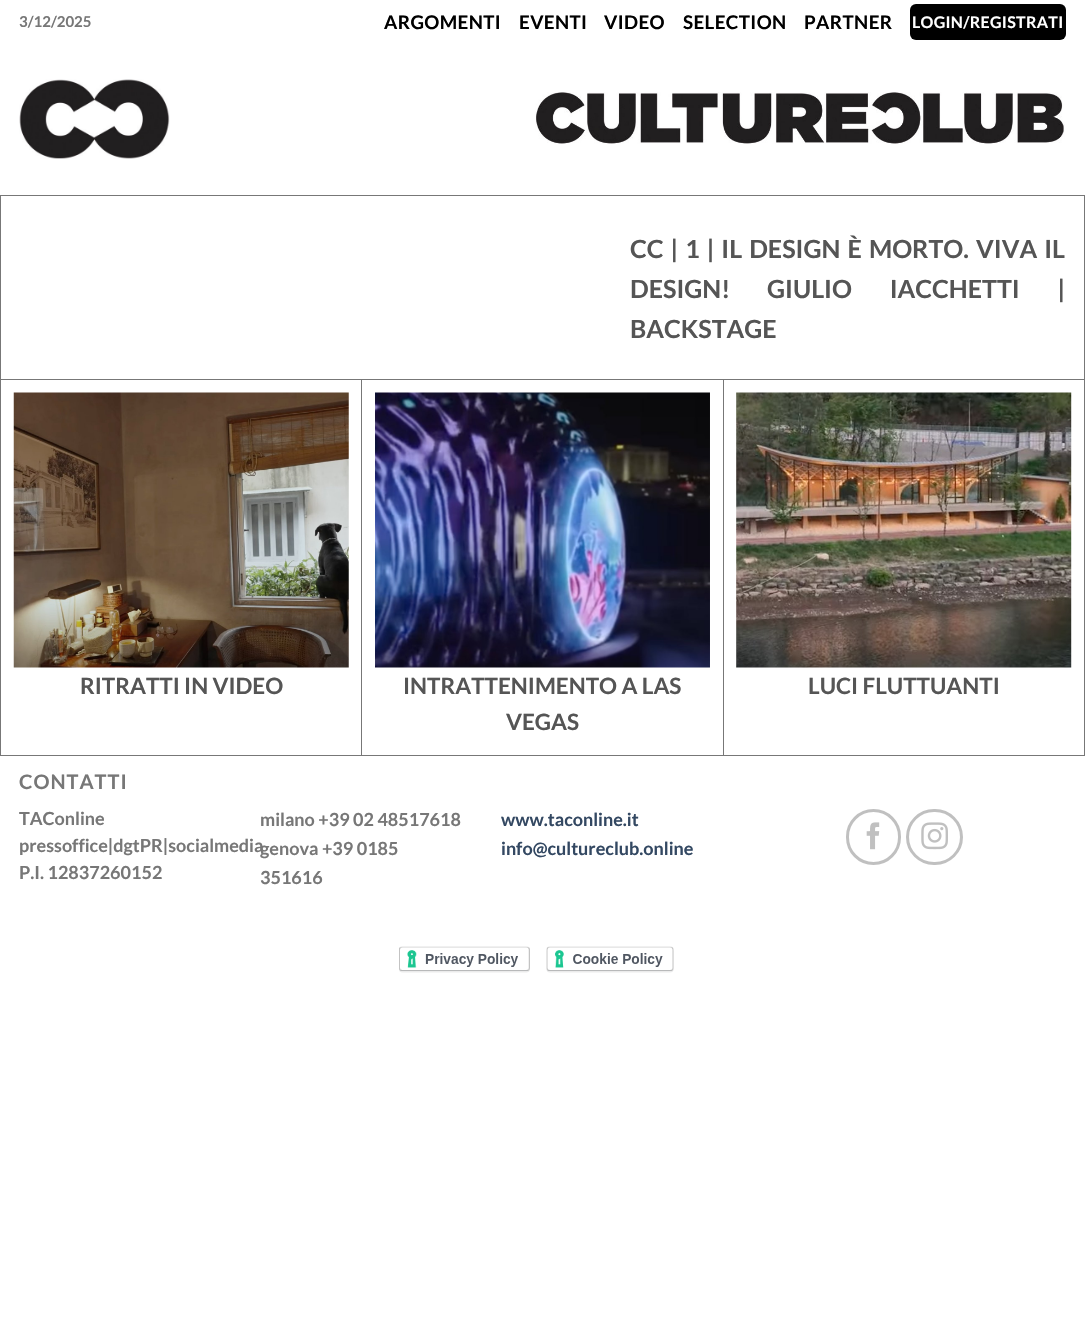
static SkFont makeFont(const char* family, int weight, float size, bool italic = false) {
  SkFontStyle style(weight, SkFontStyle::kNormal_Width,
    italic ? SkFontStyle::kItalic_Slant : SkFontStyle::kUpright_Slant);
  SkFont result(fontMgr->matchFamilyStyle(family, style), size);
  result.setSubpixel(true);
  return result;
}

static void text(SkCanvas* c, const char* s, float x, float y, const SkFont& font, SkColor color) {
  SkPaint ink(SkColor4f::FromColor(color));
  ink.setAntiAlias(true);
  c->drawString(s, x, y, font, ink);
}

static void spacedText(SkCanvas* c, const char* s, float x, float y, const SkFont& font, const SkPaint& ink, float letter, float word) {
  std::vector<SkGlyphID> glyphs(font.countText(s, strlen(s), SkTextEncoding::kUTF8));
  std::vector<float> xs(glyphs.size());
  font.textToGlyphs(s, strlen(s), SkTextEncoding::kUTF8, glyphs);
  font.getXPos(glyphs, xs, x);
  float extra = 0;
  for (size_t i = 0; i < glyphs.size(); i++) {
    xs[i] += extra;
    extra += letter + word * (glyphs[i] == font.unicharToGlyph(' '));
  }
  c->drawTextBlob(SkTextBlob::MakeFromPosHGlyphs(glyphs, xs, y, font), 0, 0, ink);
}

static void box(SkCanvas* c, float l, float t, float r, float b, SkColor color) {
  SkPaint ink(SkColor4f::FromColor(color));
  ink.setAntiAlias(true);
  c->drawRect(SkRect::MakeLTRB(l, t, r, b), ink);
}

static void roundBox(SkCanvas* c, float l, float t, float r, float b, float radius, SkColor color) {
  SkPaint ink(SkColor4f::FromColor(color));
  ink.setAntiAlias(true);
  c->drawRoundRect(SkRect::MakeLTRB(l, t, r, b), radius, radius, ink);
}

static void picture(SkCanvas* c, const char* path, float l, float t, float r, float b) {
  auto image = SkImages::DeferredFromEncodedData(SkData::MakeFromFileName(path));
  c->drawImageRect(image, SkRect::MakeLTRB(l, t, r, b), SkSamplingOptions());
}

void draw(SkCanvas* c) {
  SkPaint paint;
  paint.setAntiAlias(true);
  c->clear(0xffffffff);
  SkFont face1 = makeFont("Lato", 700, 15);
  text(c, "3/12/2025", 19, 27, face1, 0xff777777);
  SkFont face2 = makeFont("Lato", 700, 18.75f);
  paint.setColor(0xff000000);
  spacedText(c, "ARGOMENTI", 384, 29, face2, paint, 0.4f, 0);
  spacedText(c, "EVENTI", 519, 29, face2, paint, 0.4f, 0);
  spacedText(c, "VIDEO", 604, 29, face2, paint, 0.4f, 0);
  spacedText(c, "SELECTION", 683, 29, face2, paint, 0.4f, 0);
  spacedText(c, "PARTNER", 804, 29, face2, paint, 0.4f, 0);
  roundBox(c, 910, 4, 1066, 40, 6, 0xff000000);
  SkFont face3 = makeFont("Lato", 700, 16);
  paint.setColor(0xffffffff);
  spacedText(c, "LOGIN/REGISTRATI", 912, 28, face3, paint, 0.3f, 0);
  box(c, 0, 195, 1085, 196, 0xff777777);
  picture(c, "img_01.png", 19, 79, 170, 159);
  picture(c, "img_02.png", 535, 92, 1065, 144);
  box(c, 1084, 196, 1085, 755, 0xff777777);
  box(c, 0, 379, 1085, 380, 0xff777777);
  box(c, 0, 196, 1, 755, 0xff777777);
  SkFont face4 = makeFont("Lato", 700, 25);
  paint.setColor(0xff555555);
  spacedText(c, "CC | 1 | IL DESIGN È MORTO. VIVA IL", 630, 258, face4, paint, 0, 2.25f);
  text(c, "DESIGN!", 630, 298, face4, 0xff555555);
  spacedText(c, "GIULIO IACCHETTI |", 767, 298, face4, paint, 0, 33);
  text(c, "BACKSTAGE", 630, 338, face4, 0xff555555);
  box(c, 361, 380, 362, 755, 0xff777777);
  picture(c, "img_03.png", 13, 392, 349, 668);
  SkFont face5 = makeFont("Lato", 700, 22.5f);
  text(c, "RITRATTI IN VIDEO", 80, 694, face5, 0xff555555);
  box(c, 723, 380, 724, 755, 0xff777777);
  picture(c, "img_04.png", 375, 392, 710, 668);
  text(c, "INTRATTENIMENTO A LAS", 403, 694, face5, 0xff555555);
  text(c, "VEGAS", 506, 730, face5, 0xff555555);
  picture(c, "img_05.png", 736, 392, 1072, 668);
  text(c, "LUCI FLUTTUANTI", 808, 694, face5, 0xff555555);
  box(c, 0, 755, 1085, 756, 0xff777777);
  SkFont face6 = makeFont("Lato", 700, 20);
  paint.setColor(0xff777777);
  spacedText(c, "CONTATTI", 19, 789, face6, paint, 1, 0);
  SkFont face7 = makeFont("Lato", 700, 18);
  text(c, "TAConline", 19, 825, face7, 0xff777777);
  text(c, "pressoffice|dgtPR|socialmedia", 19, 852, face7, 0xff777777);
  text(c, "P.I. 12837260152", 19, 879, face7, 0xff777777);
  text(c, "milano +39 02 48517618", 260, 826, face7, 0xff777777);
  text(c, "genova +39 0185", 260, 855, face7, 0xff777777);
  text(c, "351616", 260, 884, face7, 0xff777777);
  text(c, "www.taconline.it", 501, 826, face7, 0xff334862);
  text(c, "info@cultureclub.online", 501, 855, face7, 0xff334862);
  paint.setStyle(SkPaint::kStroke_Style);
  paint.setStrokeWidth(3);
  paint.setColor(0xffc0c0c0);
  c->drawRoundRect(SkRect::MakeLTRB(847.5f, 810.5f, 899.5f, 863.5f), 26, 26, paint);
  picture(c, "img_06.png", 866, 822, 880, 850);
  c->drawRoundRect(SkRect::MakeLTRB(907.5f, 810.5f, 961.5f, 863.5f), 26.5f, 26.5f, paint);
  picture(c, "img_07.png", 921, 822, 948, 850);
  picture(c, "img_08.png", 399, 946, 530, 973);
  picture(c, "img_09.png", 546, 946, 674, 973);
}
